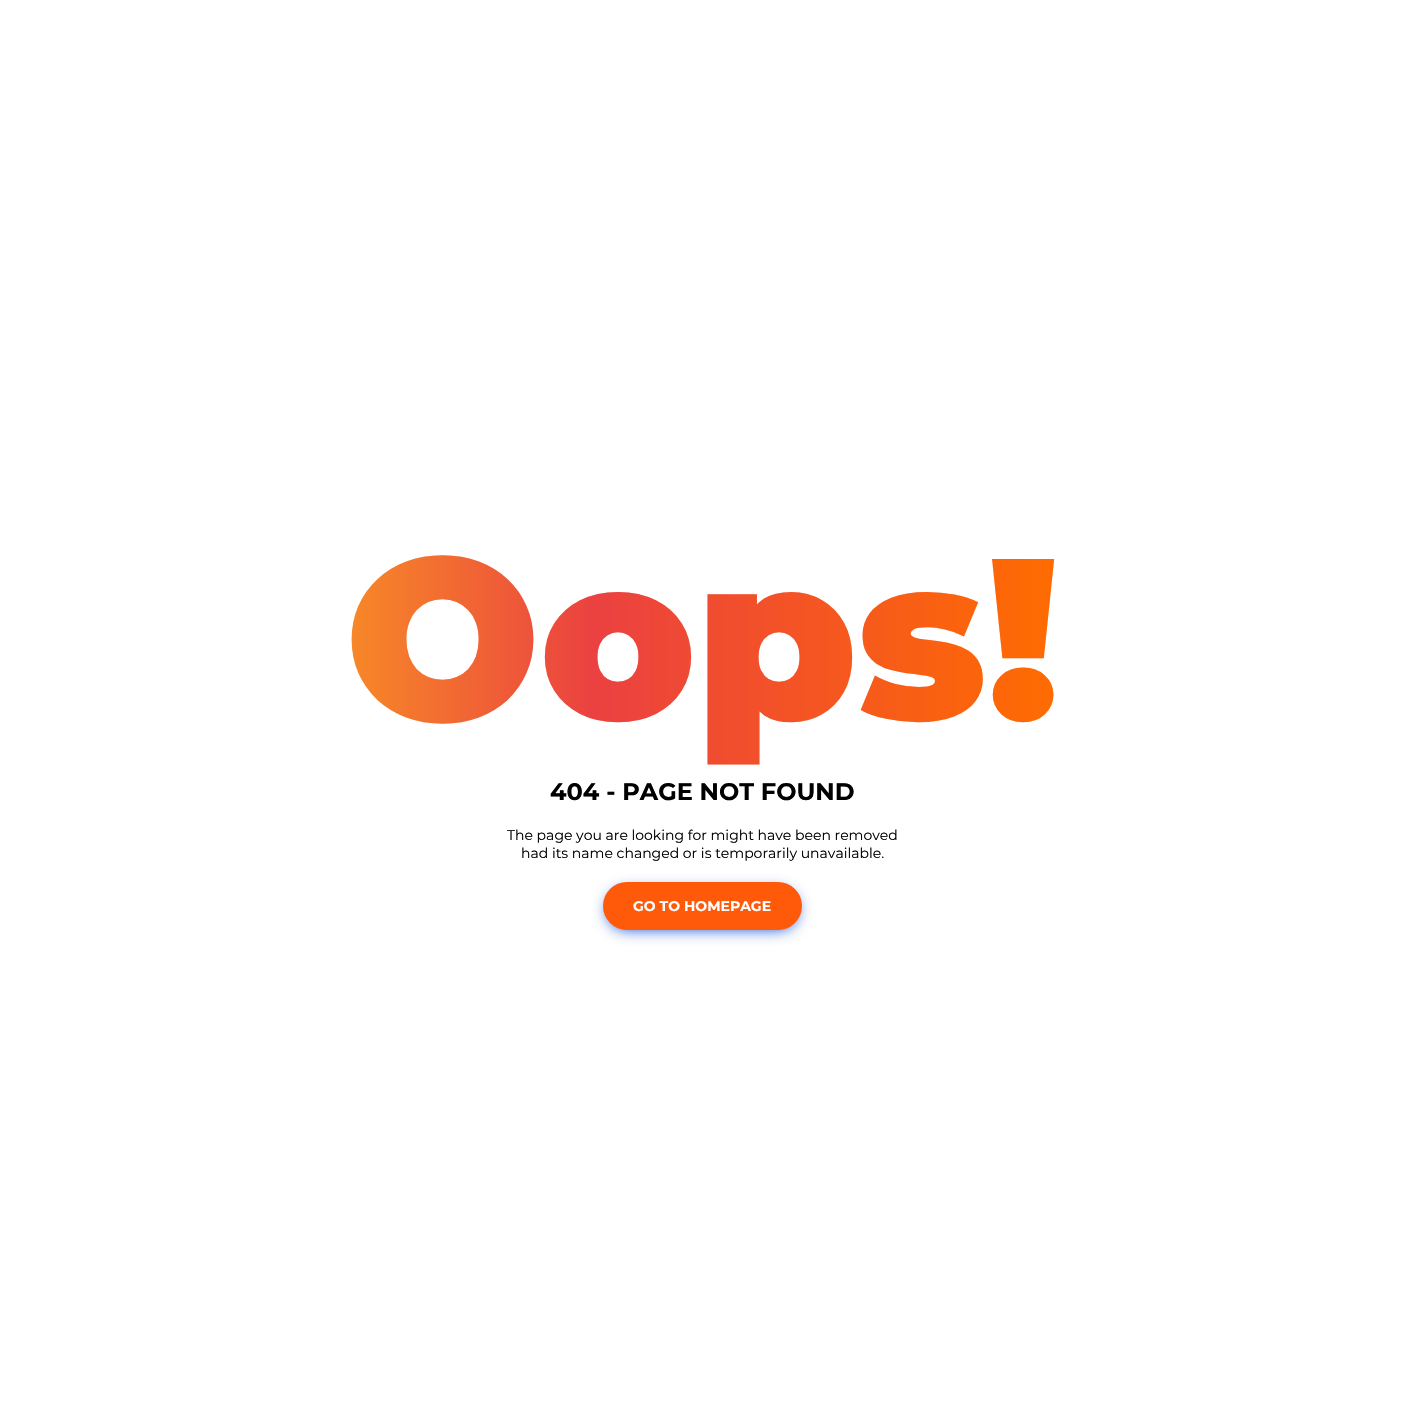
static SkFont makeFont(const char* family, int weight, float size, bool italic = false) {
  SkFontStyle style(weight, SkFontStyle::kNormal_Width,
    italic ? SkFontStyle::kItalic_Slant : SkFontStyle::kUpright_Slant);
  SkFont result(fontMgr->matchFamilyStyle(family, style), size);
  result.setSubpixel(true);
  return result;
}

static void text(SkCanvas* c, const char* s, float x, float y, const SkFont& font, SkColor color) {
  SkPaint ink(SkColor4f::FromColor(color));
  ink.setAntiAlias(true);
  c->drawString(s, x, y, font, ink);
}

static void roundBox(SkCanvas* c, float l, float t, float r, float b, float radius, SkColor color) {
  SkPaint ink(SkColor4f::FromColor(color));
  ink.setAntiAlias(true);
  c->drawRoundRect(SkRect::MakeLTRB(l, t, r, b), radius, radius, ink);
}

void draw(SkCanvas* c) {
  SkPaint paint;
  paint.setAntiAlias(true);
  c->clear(0xffffffff);
  SkFont face1 = makeFont("Montserrat", 900, 230);
  {
    const SkColor colors[] = {0xfff78927, 0xffeb4141, 0xffff6c00};
    const float stops[] = {0, 0.35f, 1};
    const SkPoint ends[] = {{345, 638}, {1060, 638}};
    paint.setShader(SkGradientShader::MakeLinear(ends, colors, stops, 3, SkTileMode::kClamp));
    paint.setAlpha(255);
  }
  c->drawString("Oops!", 345, 720, face1, paint);
  SkFont face2 = makeFont("Montserrat", 700, 24);
  text(c, "404 - PAGE NOT FOUND", 550, 800, face2, 0xff000000);
  SkFont face3 = makeFont("Montserrat", 400, 14);
  text(c, "The page you are looking for might have been removed", 507, 840, face3, 0xff000000);
  text(c, "had its name changed or is temporarily unavailable.", 521, 858, face3, 0xff000000);
  paint.setShader(nullptr);
  paint.setColor(0xff0046d5);
  paint.setMaskFilter(SkMaskFilter::MakeBlur(kNormal_SkBlurStyle, 7.5f));
  c->drawRoundRect(SkRect::MakeLTRB(608, 891, 797, 929), 19, 19, paint);
  paint.setMaskFilter(nullptr);
  roundBox(c, 603, 882, 802, 930, 24, 0xffff590a);
  SkFont face4 = makeFont("Montserrat", 700, 14);
  text(c, "GO TO HOMEPAGE", 633, 911, face4, 0xffffffff);
}
